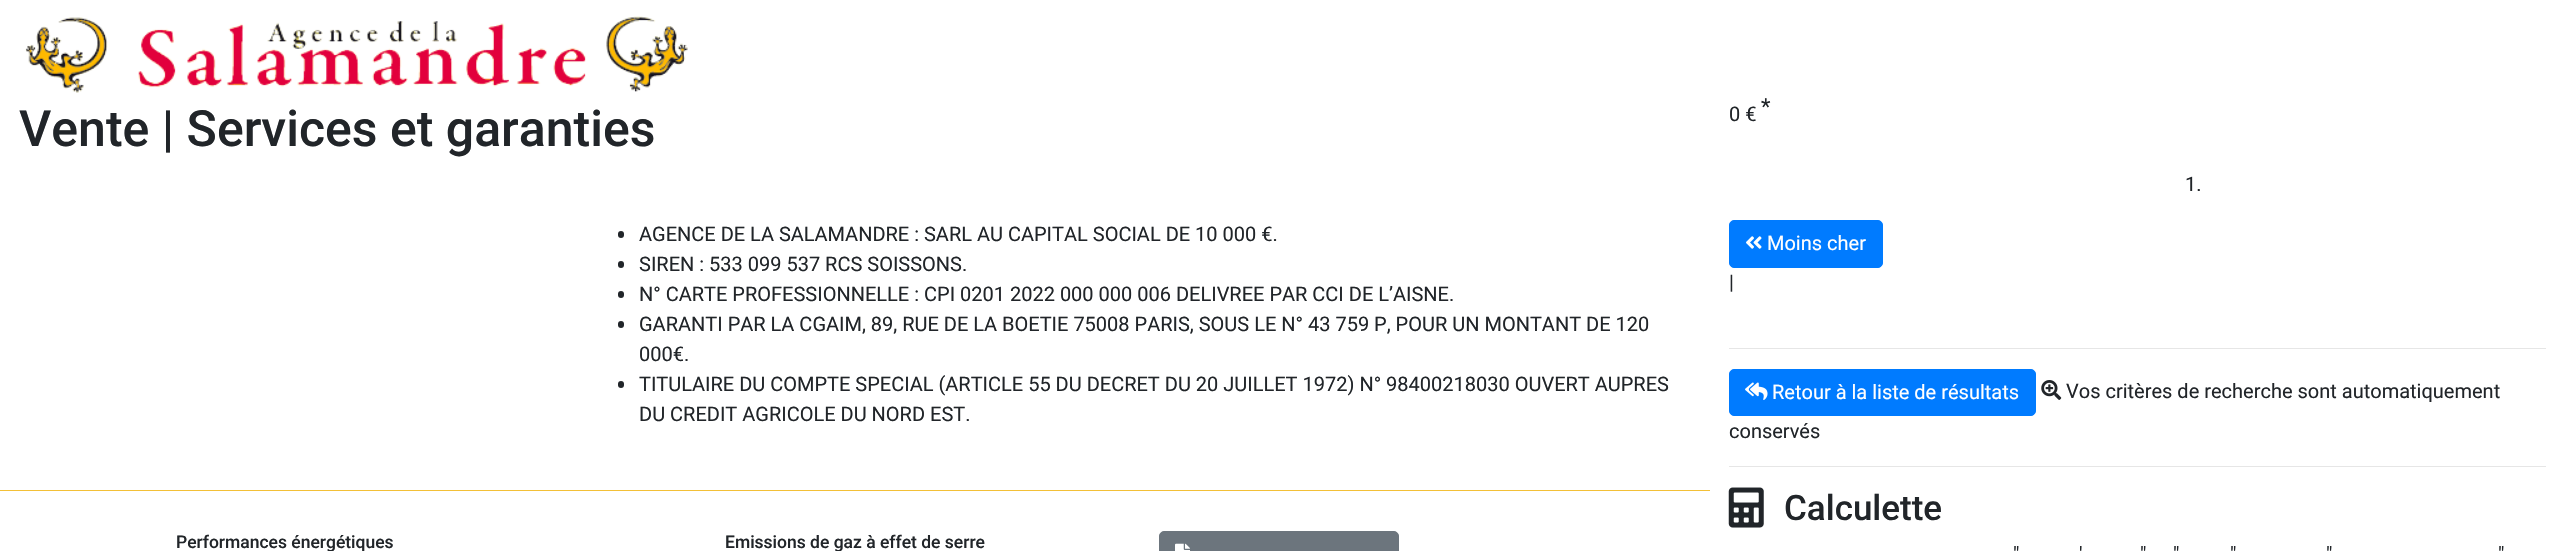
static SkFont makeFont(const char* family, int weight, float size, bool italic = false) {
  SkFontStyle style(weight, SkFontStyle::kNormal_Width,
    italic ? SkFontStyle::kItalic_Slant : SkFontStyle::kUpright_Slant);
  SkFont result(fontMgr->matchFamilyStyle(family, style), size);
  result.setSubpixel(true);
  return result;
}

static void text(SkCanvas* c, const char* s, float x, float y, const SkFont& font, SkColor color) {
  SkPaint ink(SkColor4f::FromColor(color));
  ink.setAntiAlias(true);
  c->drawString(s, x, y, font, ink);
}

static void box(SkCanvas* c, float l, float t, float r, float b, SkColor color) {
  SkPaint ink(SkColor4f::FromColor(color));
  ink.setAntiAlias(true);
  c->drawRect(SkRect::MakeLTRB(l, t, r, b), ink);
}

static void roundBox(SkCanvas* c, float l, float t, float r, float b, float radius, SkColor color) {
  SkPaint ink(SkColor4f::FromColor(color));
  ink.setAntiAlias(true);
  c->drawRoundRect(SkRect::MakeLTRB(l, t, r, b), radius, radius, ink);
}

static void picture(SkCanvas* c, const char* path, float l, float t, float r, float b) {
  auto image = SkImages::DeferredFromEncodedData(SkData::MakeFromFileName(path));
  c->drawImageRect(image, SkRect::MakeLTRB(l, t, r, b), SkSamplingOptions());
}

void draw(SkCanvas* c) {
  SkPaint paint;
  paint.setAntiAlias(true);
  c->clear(0xffffffff);
  picture(c, "img_01.png", 25, 16, 688, 93);
  SkFont face1 = makeFont("Roboto", 500, 50);
  text(c, "Vente | Services et garanties", 19, 146, face1, 0xff212529);
  SkFont face2 = makeFont("Roboto", 400, 22);
  text(c, "*", 1761, 114, face2, 0xff212529);
  SkFont face3 = makeFont("Roboto", 400, 20);
  text(c, "0 €", 1729, 121, face3, 0xff212529);
  text(c, "1.", 2185, 191, face3, 0xff212529);
  roundBox(c, 618, 231, 624, 238, 3, 0xff212529);
  text(c, "AGENCE DE LA SALAMANDRE : SARL AU CAPITAL SOCIAL DE 10 000 €.", 639, 241, face3, 0xff212529);
  roundBox(c, 618, 261, 624, 268, 3, 0xff212529);
  text(c, "SIREN : 533 099 537 RCS SOISSONS.", 639, 271, face3, 0xff212529);
  roundBox(c, 618, 291, 624, 298, 3, 0xff212529);
  text(c, "N° CARTE PROFESSIONNELLE : CPI 0201 2022 000 000 006 DELIVREE PAR CCI DE L’AISNE.", 639, 301, face3, 0xff212529);
  roundBox(c, 618, 321, 624, 328, 3, 0xff212529);
  text(c, "GARANTI PAR LA CGAIM, 89, RUE DE LA BOETIE 75008 PARIS, SOUS LE N° 43 759 P, POUR UN MONTANT DE 120", 639, 331, face3, 0xff212529);
  text(c, "000€.", 639, 361, face3, 0xff212529);
  roundBox(c, 618, 381, 624, 388, 3, 0xff212529);
  text(c, "TITULAIRE DU COMPTE SPECIAL (ARTICLE 55 DU DECRET DU 20 JUILLET 1972) N° 98400218030 OUVERT AUPRES", 639, 391, face3, 0xff212529);
  text(c, "DU CREDIT AGRICOLE DU NORD EST.", 639, 421, face3, 0xff212529);
  box(c, 0, 490, 1710, 491, 0xfff3c037);
  SkFont face4 = makeFont("Roboto", 500, 17.5f);
  text(c, "Performances énergétiques", 176, 548, face4, 0xff212529);
  text(c, "Emissions de gaz à effet de serre", 725, 548, face4, 0xff212529);
  paint.setColor(0xff6c757d);
  c->drawRoundRect(SkRect::MakeLTRB(1159.5f, 531.5f, 1398.5f, 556.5f), 4.5f, 4.5f, paint);
  paint.setStyle(SkPaint::kStroke_Style);
  paint.setStrokeWidth(1);
  c->drawRoundRect(SkRect::MakeLTRB(1159.5f, 531.5f, 1398.5f, 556.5f), 4.5f, 4.5f, paint);
  picture(c, "img_02.png", 1175, 543, 1190, 551);
  paint.setStyle(SkPaint::kFill_Style);
  paint.setColor(0xff007bff);
  c->drawRoundRect(SkRect::MakeLTRB(1729.5f, 220.5f, 1882.5f, 267.5f), 4.5f, 4.5f, paint);
  paint.setStyle(SkPaint::kStroke_Style);
  c->drawRoundRect(SkRect::MakeLTRB(1729.5f, 220.5f, 1882.5f, 267.5f), 4.5f, 4.5f, paint);
  picture(c, "img_03.png", 1746, 236, 1762, 249);
  text(c, "Moins cher", 1767, 250, face3, 0xffffffff);
  text(c, "|", 1729, 289, face3, 0xff212529);
  box(c, 1729, 348, 2546, 349, 0xffe6e6e6);
  picture(c, "img_04.png", 2041, 380, 2062, 400);
  text(c, "Vos critères de recherche sont automatiquement", 2066, 398, face3, 0xff212529);
  text(c, "conservés", 1729, 438, face3, 0xff212529);
  paint.setStyle(SkPaint::kFill_Style);
  c->drawRoundRect(SkRect::MakeLTRB(1729.5f, 369.5f, 2035.5f, 415.5f), 4.5f, 4.5f, paint);
  paint.setStyle(SkPaint::kStroke_Style);
  c->drawRoundRect(SkRect::MakeLTRB(1729.5f, 369.5f, 2035.5f, 415.5f), 4.5f, 4.5f, paint);
  picture(c, "img_05.png", 1745, 382, 1768, 400);
  text(c, "Retour à la liste de résultats", 1772, 399, face3, 0xffffffff);
  box(c, 1729, 466, 2546, 467, 0xffe6e6e6);
  picture(c, "img_06.png", 1728, 487, 1764, 528);
  SkFont face5 = makeFont("Roboto", 500, 35);
  text(c, "Calculette", 1784, 520, face5, 0xff212529);
  text(c, "\"", 2013, 561, face3, 0xff212529);
  text(c, "'", 2079, 561, face3, 0xff212529);
  text(c, "\"", 2140, 561, face3, 0xff212529);
  text(c, "\"", 2173, 561, face3, 0xff212529);
  text(c, "\"", 2230, 561, face3, 0xff212529);
  text(c, "\"", 2326, 561, face3, 0xff212529);
  text(c, "\"", 2498, 561, face3, 0xff212529);
}
